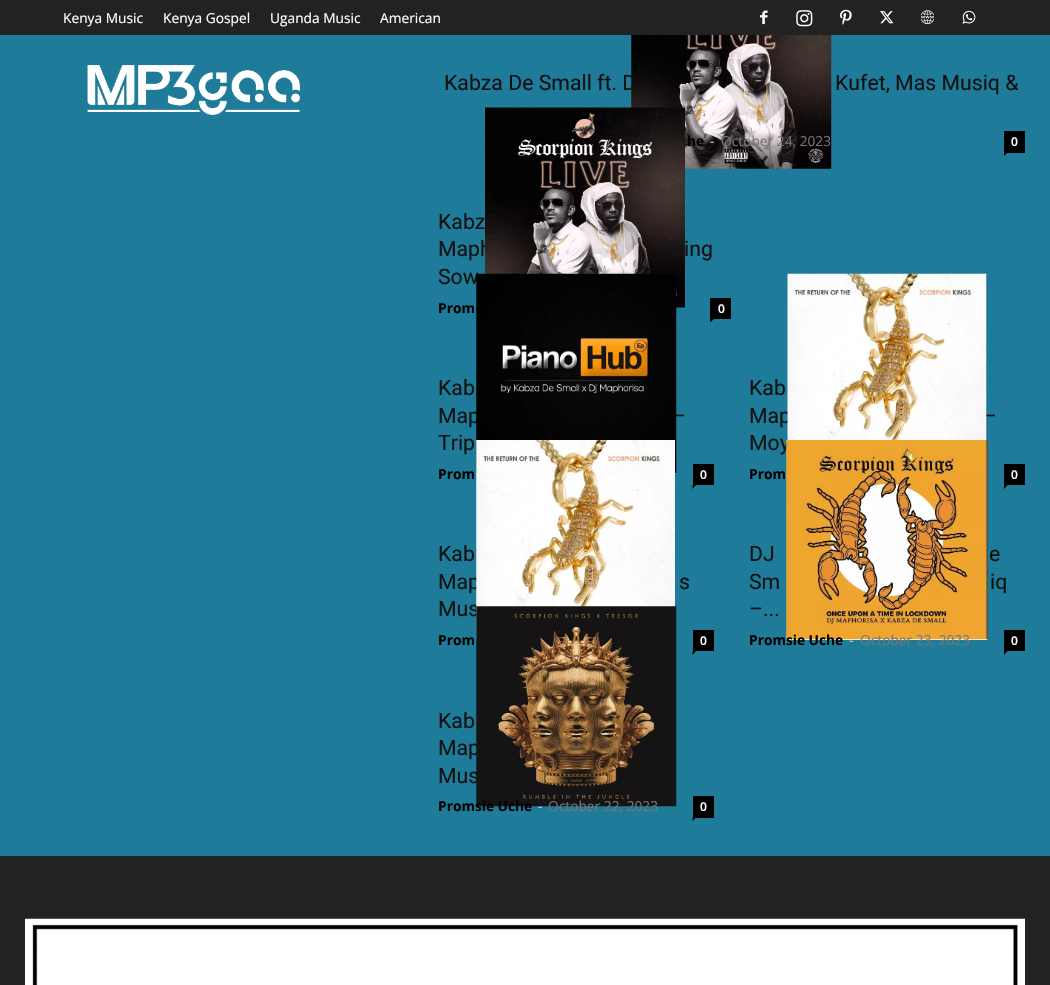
static SkFont makeFont(const char* family, int weight, float size, bool italic = false) {
  SkFontStyle style(weight, SkFontStyle::kNormal_Width,
    italic ? SkFontStyle::kItalic_Slant : SkFontStyle::kUpright_Slant);
  SkFont result(fontMgr->matchFamilyStyle(family, style), size);
  result.setSubpixel(true);
  return result;
}

static void text(SkCanvas* c, const char* s, float x, float y, const SkFont& font, SkColor color) {
  SkPaint ink(SkColor4f::FromColor(color));
  ink.setAntiAlias(true);
  c->drawString(s, x, y, font, ink);
}

static void box(SkCanvas* c, float l, float t, float r, float b, SkColor color) {
  SkPaint ink(SkColor4f::FromColor(color));
  ink.setAntiAlias(true);
  c->drawRect(SkRect::MakeLTRB(l, t, r, b), ink);
}

static void picture(SkCanvas* c, const char* path, float l, float t, float r, float b) {
  auto image = SkImages::DeferredFromEncodedData(SkData::MakeFromFileName(path));
  c->drawImageRect(image, SkRect::MakeLTRB(l, t, r, b), SkSamplingOptions());
}

void draw(SkCanvas* c) {
  SkPaint paint;
  paint.setAntiAlias(true);
  c->clear(0xff222222);
  SkFont face1 = makeFont("Open Sans", 400, 13.75f);
  text(c, "Kenya Music", 63, 23, face1, 0xffffffff);
  text(c, "Kenya Gospel", 163, 23, face1, 0xffffffff);
  text(c, "Uganda Music", 270, 23, face1, 0xffffffff);
  text(c, "American", 380, 23, face1, 0xffffffff);
  picture(c, "img_01.png", 760, 10, 768, 25);
  picture(c, "img_02.png", 796, 10, 813, 27);
  picture(c, "img_03.png", 840, 9, 852, 25);
  picture(c, "img_04.png", 880, 11, 894, 24);
  picture(c, "img_05.png", 920, 10, 935, 25);
  picture(c, "img_06.png", 962, 10, 976, 24);
  box(c, 0, 35, 1050, 856, 0xff1e7c9a);
  picture(c, "img_07.png", 87, 65, 300, 115);
  SkFont face2 = makeFont("Roboto", 400, 21.25f);
  text(c, "Kabza De Small ft. D", 444, 90, face2, 0xff111111);
  picture(c, "img_08.png", 631, 35, 832, 169);
  text(c, "Kufet, Mas Musiq &", 835, 90, face2, 0xff111111);
  SkFont face3 = makeFont("Open Sans", 700, 13.75f);
  text(c, "he", 687, 146, face3, 0xff000000);
  text(c, "-", 710, 146, face1, 0xffcccccc);
  text(c, "October 24, 2023", 721, 146, face1, 0xff767676);
  box(c, 1004, 131, 1025, 153, 0xff000000);
  SkFont face4 = makeFont("Open Sans", 600, 12);
  text(c, "0", 1011, 146, face4, 0xffffffff);
  paint.setColor(0xff000000);
  c->drawPath(SkPathBuilder().moveTo(1004, 152.5f).lineTo(1007.5f, 152.5f).lineTo(1004, 156).close().detach(), paint);
  text(c, "Maph", 438, 256, face2, 0xff111111);
  picture(c, "img_09.png", 485, 107, 685, 308);
  text(c, "Kabz", 438, 229, face2, 0xff111111);
  text(c, "ing", 684, 256, face2, 0xff111111);
  text(c, "Sow", 438, 284, face2, 0xff111111);
  text(c, "Prom", 438, 313, face3, 0xff000000);
  box(c, 710, 298, 731, 319, 0xff000000);
  text(c, "0", 718, 313, face4, 0xffffffff);
  c->drawPath(SkPathBuilder().moveTo(710, 319).lineTo(714, 319).lineTo(710, 322.5f).close().detach(), paint);
  text(c, "Map", 438, 423, face2, 0xff111111);
  text(c, "–", 672, 423, face2, 0xff111111);
  picture(c, "img_10.png", 476, 273, 677, 474);
  text(c, "Kab", 438, 395, face2, 0xff111111);
  text(c, "Trip", 438, 450, face2, 0xff111111);
  text(c, "Prom", 438, 479, face3, 0xff000000);
  box(c, 693, 464, 714, 485, 0xff000000);
  text(c, "0", 700, 479, face4, 0xffffffff);
  c->drawPath(SkPathBuilder().moveTo(692.5f, 485).lineTo(696, 485).lineTo(692.5f, 489).close().detach(), paint);
  text(c, "Map", 749, 423, face2, 0xff111111);
  text(c, "–", 983, 423, face2, 0xff111111);
  text(c, "Moy", 749, 450, face2, 0xff111111);
  picture(c, "img_11.png", 787, 273, 987, 440);
  text(c, "Kab", 749, 395, face2, 0xff111111);
  text(c, "Prom", 749, 479, face3, 0xff000000);
  box(c, 1004, 464, 1025, 485, 0xff000000);
  text(c, "0", 1011, 479, face4, 0xffffffff);
  c->drawPath(SkPathBuilder().moveTo(1004, 485).lineTo(1007.5f, 485).lineTo(1004, 489).close().detach(), paint);
  text(c, "Map", 438, 589, face2, 0xff111111);
  text(c, "Mus", 438, 616, face2, 0xff111111);
  picture(c, "img_12.png", 476, 440, 675, 640);
  text(c, "Kab", 438, 561, face2, 0xff111111);
  text(c, "s", 679, 589, face2, 0xff111111);
  text(c, "Prom", 438, 645, face3, 0xff000000);
  box(c, 693, 630, 714, 651, 0xff000000);
  text(c, "0", 700, 645, face4, 0xffffffff);
  c->drawPath(SkPathBuilder().moveTo(692.5f, 651).lineTo(696, 651).lineTo(692.5f, 655).close().detach(), paint);
  picture(c, "img_13.png", 786, 440, 988, 640);
  text(c, "DJ", 749, 561, face2, 0xff111111);
  text(c, "e", 989, 561, face2, 0xff111111);
  text(c, "Sm", 749, 589, face2, 0xff111111);
  text(c, "iq", 990, 589, face2, 0xff111111);
  text(c, "–...", 749, 616, face2, 0xff111111);
  text(c, "Promsie Uche", 749, 645, face3, 0xff000000);
  text(c, "-", 849, 645, face1, 0xffcccccc);
  text(c, "October 23, 2023", 860, 645, face1, 0xff767676);
  box(c, 1004, 630, 1025, 651, 0xff000000);
  text(c, "0", 1011, 645, face4, 0xffffffff);
  c->drawPath(SkPathBuilder().moveTo(1004, 651).lineTo(1007.5f, 651).lineTo(1004, 655).close().detach(), paint);
  text(c, "Kab", 438, 728, face2, 0xff111111);
  text(c, "Map", 438, 755, face2, 0xff111111);
  text(c, "Mus", 438, 783, face2, 0xff111111);
  picture(c, "img_14.png", 476, 606, 677, 807);
  text(c, "Promsie Uche", 438, 811, face3, 0xff000000);
  text(c, "-", 538, 811, face1, 0xffcccccc);
  text(c, "October 22, 2023", 548, 811, face1, 0xff767676);
  box(c, 693, 796, 714, 818, 0xff000000);
  text(c, "0", 700, 811, face4, 0xffffffff);
  c->drawPath(SkPathBuilder().moveTo(692.5f, 817.5f).lineTo(696, 817.5f).lineTo(692.5f, 821).close().detach(), paint);
  picture(c, "img_15.png", 25, 918, 1025, 985);
}
